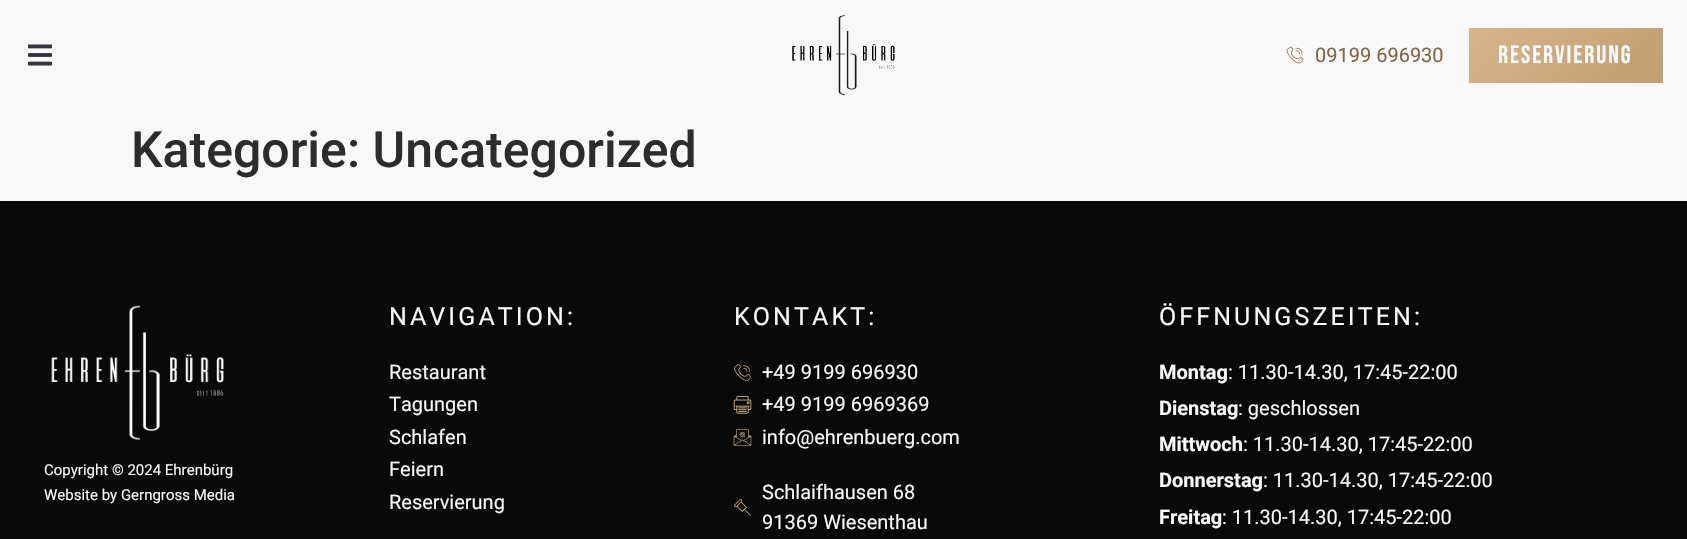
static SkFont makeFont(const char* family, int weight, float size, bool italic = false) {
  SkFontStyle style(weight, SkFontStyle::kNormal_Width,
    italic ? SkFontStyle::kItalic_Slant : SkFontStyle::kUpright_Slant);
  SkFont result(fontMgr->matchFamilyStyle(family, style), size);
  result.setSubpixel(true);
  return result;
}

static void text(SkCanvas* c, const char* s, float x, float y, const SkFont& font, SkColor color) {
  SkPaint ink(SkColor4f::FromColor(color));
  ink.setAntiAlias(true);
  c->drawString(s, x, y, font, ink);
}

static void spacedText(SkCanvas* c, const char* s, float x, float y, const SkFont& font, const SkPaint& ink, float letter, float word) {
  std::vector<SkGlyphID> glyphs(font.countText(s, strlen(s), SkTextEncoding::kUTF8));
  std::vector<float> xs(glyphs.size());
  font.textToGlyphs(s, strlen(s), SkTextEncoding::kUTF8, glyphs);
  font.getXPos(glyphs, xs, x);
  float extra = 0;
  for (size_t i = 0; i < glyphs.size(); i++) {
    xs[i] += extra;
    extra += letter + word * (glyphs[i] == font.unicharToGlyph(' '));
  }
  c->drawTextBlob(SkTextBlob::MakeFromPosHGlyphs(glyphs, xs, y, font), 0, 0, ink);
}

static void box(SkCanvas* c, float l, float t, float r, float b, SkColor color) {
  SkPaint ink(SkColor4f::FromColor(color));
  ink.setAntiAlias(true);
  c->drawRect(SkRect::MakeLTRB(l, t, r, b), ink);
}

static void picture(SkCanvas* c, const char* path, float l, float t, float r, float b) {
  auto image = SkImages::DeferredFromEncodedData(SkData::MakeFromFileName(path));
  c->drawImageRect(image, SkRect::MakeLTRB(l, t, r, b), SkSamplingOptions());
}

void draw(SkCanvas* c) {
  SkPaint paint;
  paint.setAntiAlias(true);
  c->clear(0xfff8f8f8);
  picture(c, "img_01.png", 27, 44, 53, 66);
  picture(c, "img_02.png", 792, 15, 895, 95);
  picture(c, "img_03.png", 1286, 46, 1304, 64);
  SkFont face1 = makeFont("Roboto", 400, 20);
  text(c, "09199 696930", 1315, 62, face1, 0xff806545);
  {
    const SkColor colors[] = {0xffd6b58c, 0xffbf9e73};
    const float stops[] = {0, 1};
    const SkPoint ends[] = {{1503, -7.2f}, {1628, 117}};
    paint.setShader(SkGradientShader::MakeLinear(ends, colors, stops, 2, SkTileMode::kClamp));
    paint.setAlpha(255);
  }
  c->drawRect(SkRect::MakeLTRB(1469, 28, 1663, 83), paint);
  SkFont face2 = makeFont("Bebas Neue", 400, 25);
  paint.setShader(nullptr);
  paint.setColor(0xfff8f8f8);
  spacedText(c, "RESERVIERUNG", 1498, 63, face2, paint, 1.9f, 0);
  SkFont face3 = makeFont("Roboto", 500, 50);
  text(c, "Kategorie: Uncategorized", 131, 167, face3, 0xff2c2c2c);
  box(c, 0, 201, 1687, 539, 0xff090909);
  picture(c, "img_04.png", 51, 305, 224, 441);
  SkFont face4 = makeFont("Roboto", 400, 15);
  text(c, "Copyright © 2024 Ehrenbürg", 44, 475, face4, 0xfff8f8f8);
  text(c, "Website by Gerngross Media", 44, 500, face4, 0xfff8f8f8);
  SkFont face5 = makeFont("Roboto", 400, 25);
  spacedText(c, "NAVIGATION:", 389, 325, face5, paint, 3.1f, 0);
  text(c, "Restaurant", 389, 379, face1, 0xfff8f8f8);
  text(c, "Tagungen", 389, 411, face1, 0xfff8f8f8);
  text(c, "Schlafen", 389, 444, face1, 0xfff8f8f8);
  text(c, "Feiern", 389, 476, face1, 0xfff8f8f8);
  text(c, "Reservierung", 389, 509, face1, 0xfff8f8f8);
  spacedText(c, "KONTAKT:", 734, 325, face5, paint, 3.1f, 0);
  picture(c, "img_05.png", 734, 364, 751, 381);
  text(c, "+49 9199 696930", 762, 379, face1, 0xfff8f8f8);
  picture(c, "img_06.png", 733, 396, 752, 414);
  text(c, "+49 9199 6969369", 762, 411, face1, 0xfff8f8f8);
  picture(c, "img_07.png", 733, 429, 752, 446);
  text(c, "info@ehrenbuerg.com", 762, 444, face1, 0xfff8f8f8);
  picture(c, "img_08.png", 734, 499, 751, 516);
  text(c, "Schlaifhausen 68", 762, 499, face1, 0xfff8f8f8);
  text(c, "91369 Wiesenthau", 762, 529, face1, 0xfff8f8f8);
  spacedText(c, "ÖFFNUNGSZEITEN:", 1159, 325, face5, paint, 3.1f, 0);
  SkFont face6 = makeFont("Roboto", 700, 20);
  text(c, "Montag", 1159, 379, face6, 0xfff8f8f8);
  text(c, ": 11.30-14.30, 17:45-22:00", 1228, 379, face1, 0xfff8f8f8);
  text(c, "Dienstag", 1159, 415, face6, 0xfff8f8f8);
  text(c, ": geschlossen", 1238, 415, face1, 0xfff8f8f8);
  text(c, "Mittwoch", 1159, 451, face6, 0xfff8f8f8);
  text(c, ": 11.30-14.30, 17:45-22:00", 1243, 451, face1, 0xfff8f8f8);
  text(c, "Donnerstag", 1159, 487, face6, 0xfff8f8f8);
  text(c, ": 11.30-14.30, 17:45-22:00", 1263, 487, face1, 0xfff8f8f8);
  text(c, "Freitag", 1159, 524, face6, 0xfff8f8f8);
  text(c, ": 11.30-14.30, 17:45-22:00", 1222, 524, face1, 0xfff8f8f8);
}
